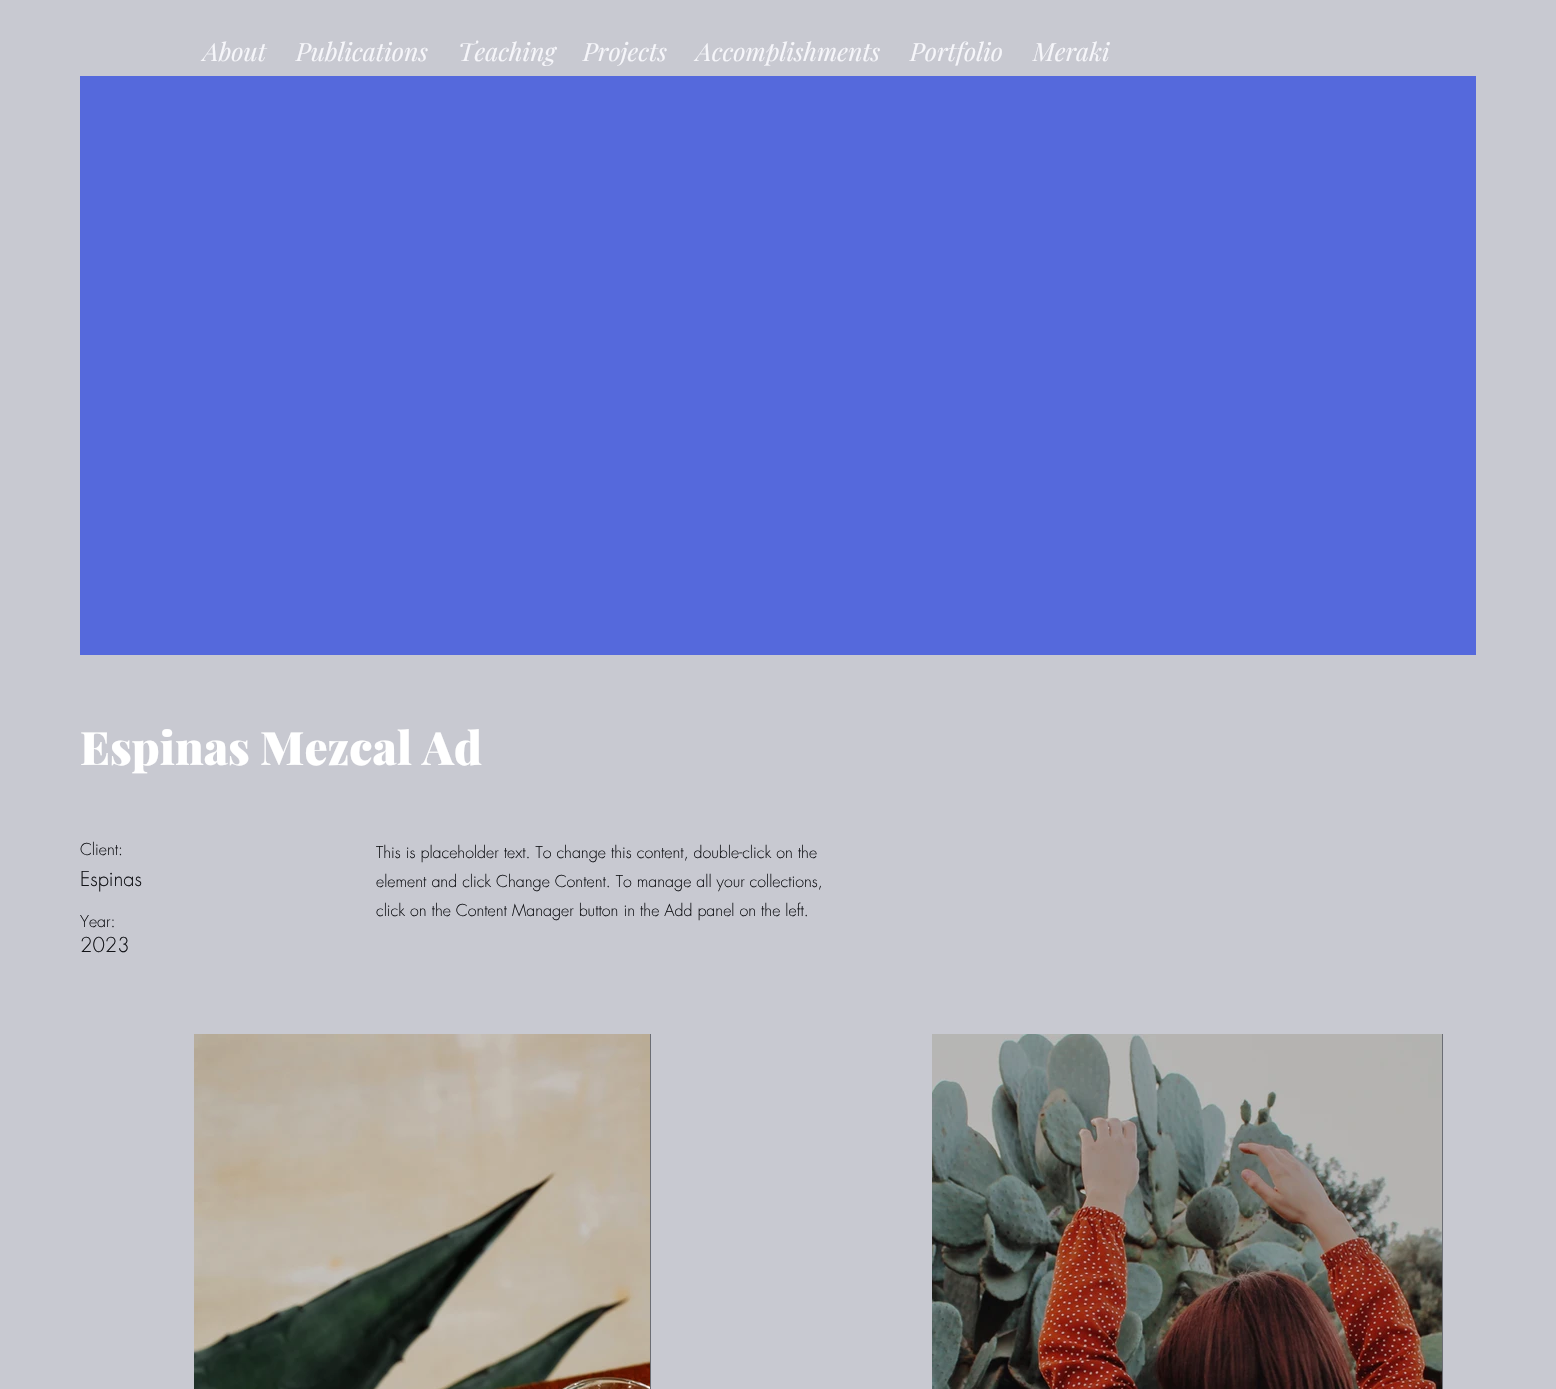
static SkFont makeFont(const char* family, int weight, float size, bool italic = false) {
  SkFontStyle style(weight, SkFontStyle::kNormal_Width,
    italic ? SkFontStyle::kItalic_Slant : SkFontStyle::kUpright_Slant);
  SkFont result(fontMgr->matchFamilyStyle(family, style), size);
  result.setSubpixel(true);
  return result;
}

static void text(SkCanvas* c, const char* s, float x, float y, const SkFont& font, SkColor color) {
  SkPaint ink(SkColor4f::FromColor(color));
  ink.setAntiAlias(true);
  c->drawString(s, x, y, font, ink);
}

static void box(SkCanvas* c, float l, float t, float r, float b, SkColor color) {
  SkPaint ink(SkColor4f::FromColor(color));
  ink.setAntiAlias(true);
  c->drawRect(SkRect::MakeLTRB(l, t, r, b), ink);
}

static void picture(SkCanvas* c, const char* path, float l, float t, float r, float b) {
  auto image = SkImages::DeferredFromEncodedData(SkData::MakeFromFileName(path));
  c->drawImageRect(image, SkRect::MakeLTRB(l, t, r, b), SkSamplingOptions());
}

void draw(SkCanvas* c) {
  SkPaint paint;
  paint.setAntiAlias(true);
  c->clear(0xffc8c9d1);
  SkFont face1 = makeFont("Playfair Display", 400, 25, true);
  text(c, "About", 203, 61, face1, 0xfff6f6fa);
  text(c, "Publications", 296, 61, face1, 0xfff6f6fa);
  text(c, "Teaching", 458, 61, face1, 0xfff6f6fa);
  text(c, "Projects", 583, 61, face1, 0xfff6f6fa);
  text(c, "Accomplishments", 696, 61, face1, 0xfff6f6fa);
  text(c, "Portfolio", 910, 61, face1, 0xfff6f6fa);
  text(c, "Meraki", 1033, 61, face1, 0xfff6f6fa);
  box(c, 80, 76, 1476, 655, 0xff5569dc);
  SkFont face2 = makeFont("Playfair Display", 900, 46);
  text(c, "Espinas Mezcal Ad", 80, 765, face2, 0xffffffff);
  SkFont face3 = makeFont("futura", 300, 16);
  text(c, "Client:", 80, 855, face3, 0xff121317);
  text(c, "This is placeholder text. To change this content, double-click on the", 376, 858, face3, 0xff121317);
  text(c, "element and click Change Content. To manage all your collections,", 376, 887, face3, 0xff121317);
  text(c, "click on the Content Manager button in the Add panel on the left.", 376, 916, face3, 0xff121317);
  SkFont face4 = makeFont("futura", 300, 20);
  text(c, "Espinas", 80, 886, face4, 0xff121317);
  text(c, "Year:", 80, 927, face3, 0xff121317);
  text(c, "2023", 80, 952, face4, 0xff121317);
  box(c, 650, 1034, 651, 1389, 0xff6b6d74);
  picture(c, "img_01.png", 194, 1034, 650, 1389);
  box(c, 1442, 1034, 1443, 1389, 0xff6b6d74);
  picture(c, "img_02.png", 932, 1034, 1442, 1389);
}
